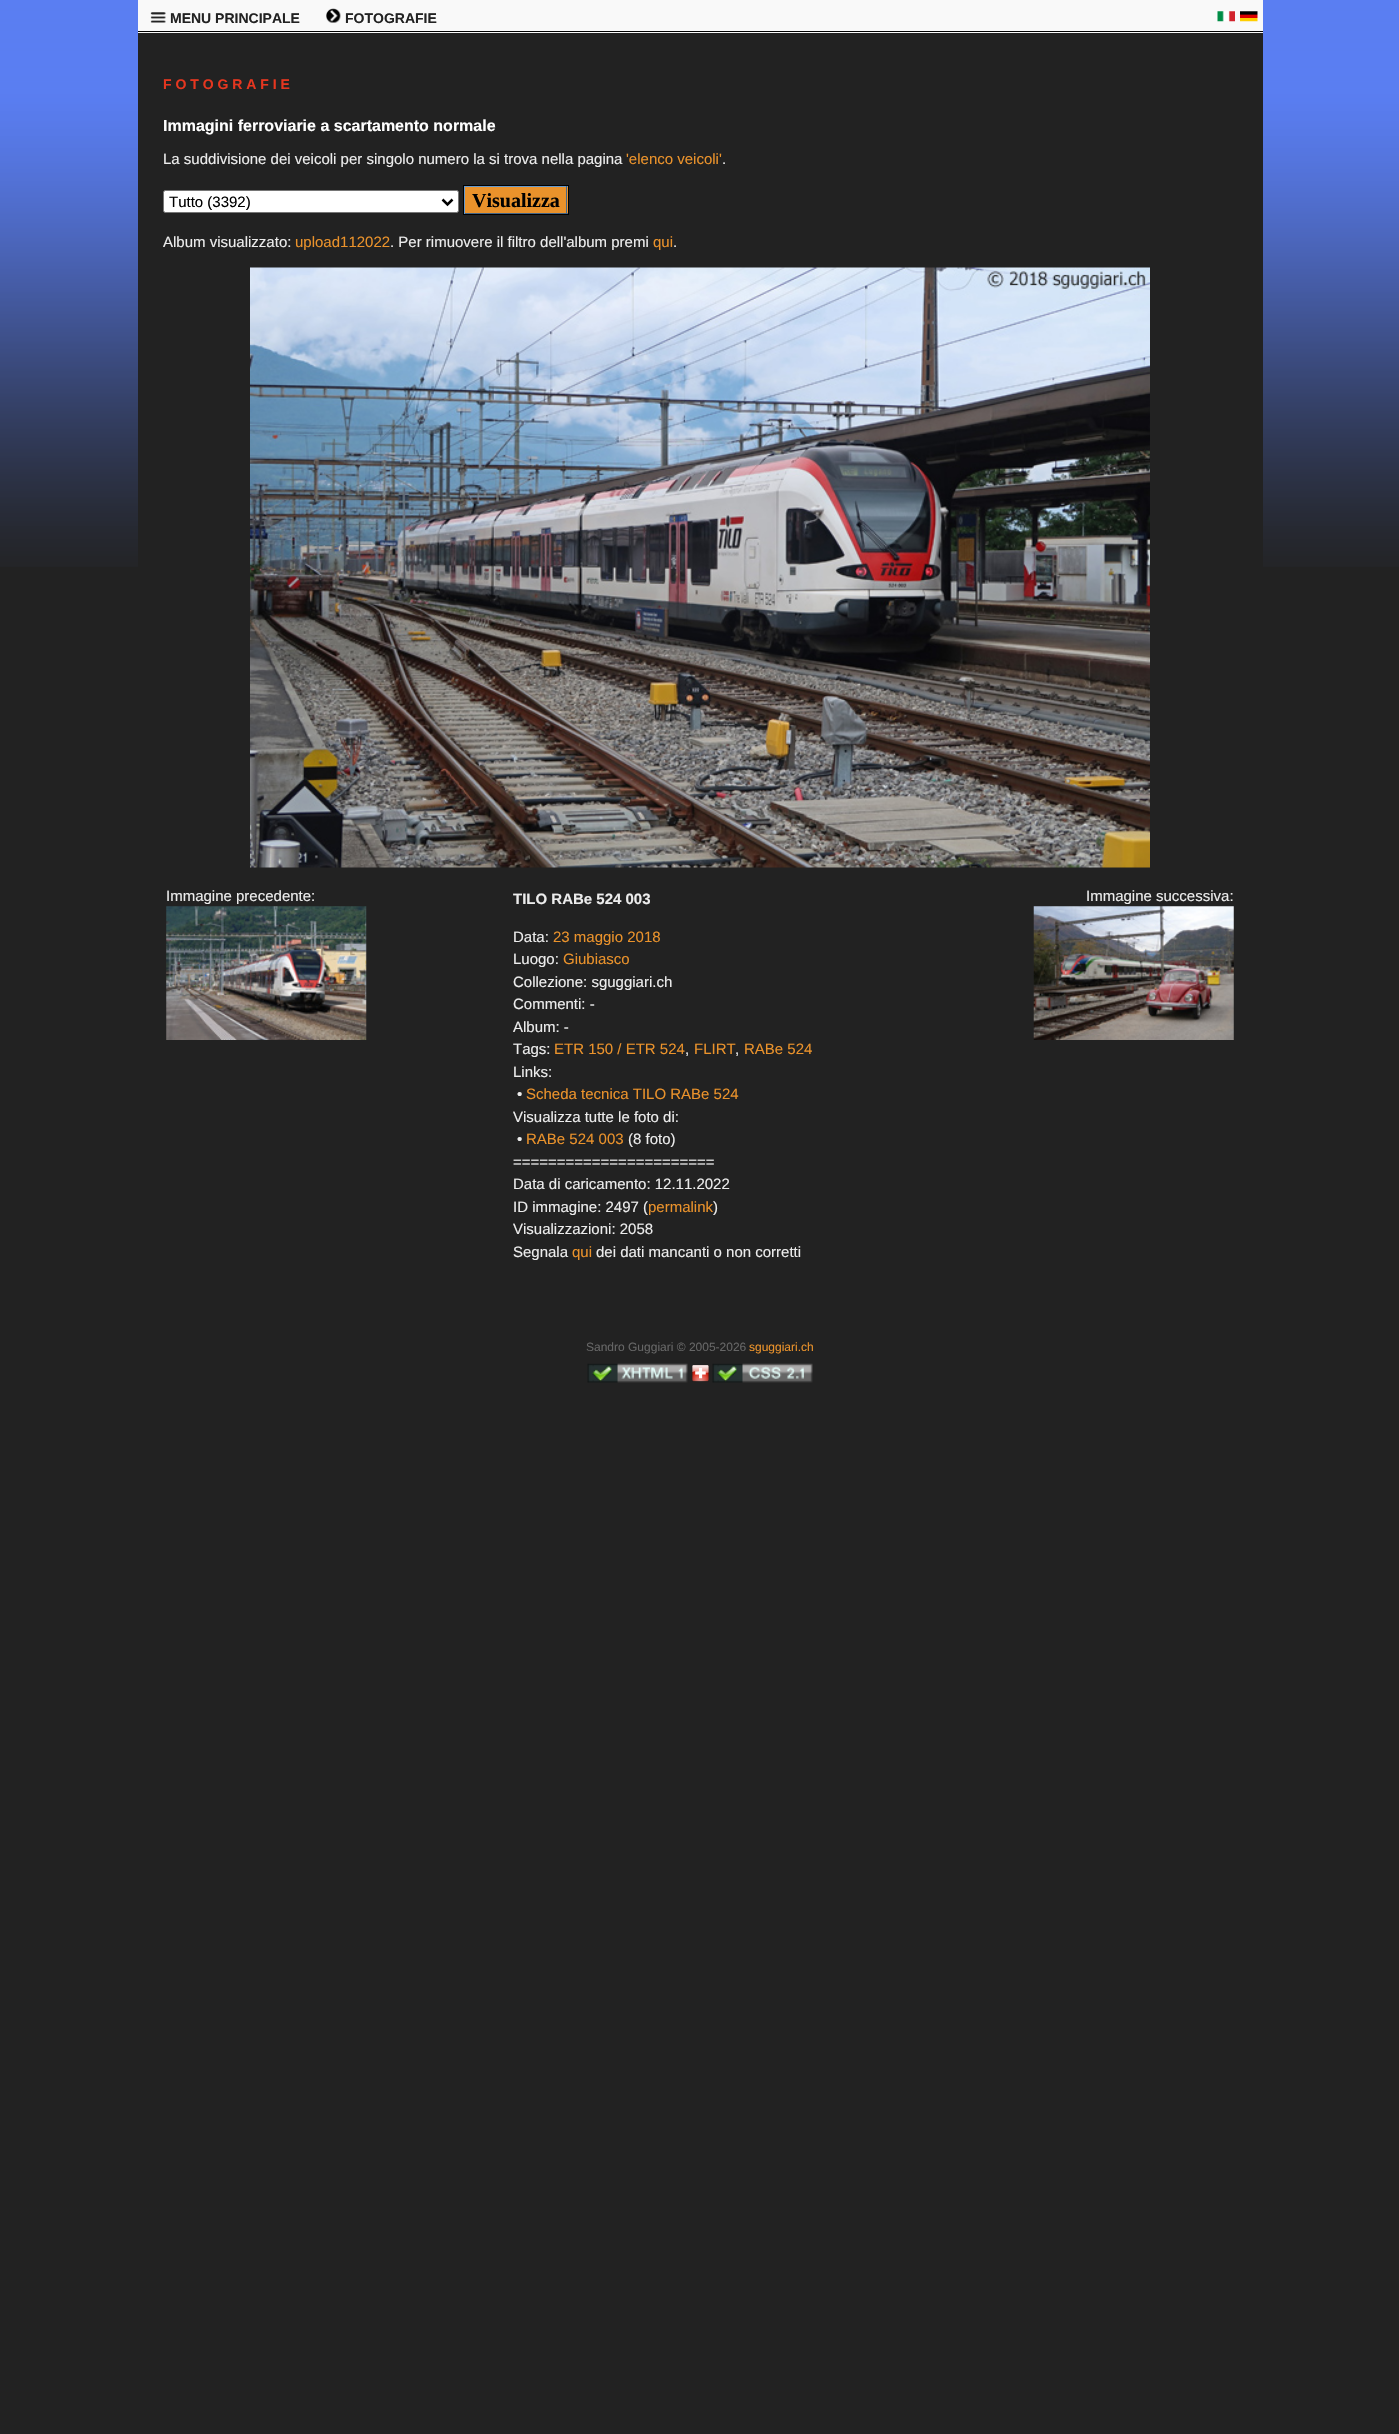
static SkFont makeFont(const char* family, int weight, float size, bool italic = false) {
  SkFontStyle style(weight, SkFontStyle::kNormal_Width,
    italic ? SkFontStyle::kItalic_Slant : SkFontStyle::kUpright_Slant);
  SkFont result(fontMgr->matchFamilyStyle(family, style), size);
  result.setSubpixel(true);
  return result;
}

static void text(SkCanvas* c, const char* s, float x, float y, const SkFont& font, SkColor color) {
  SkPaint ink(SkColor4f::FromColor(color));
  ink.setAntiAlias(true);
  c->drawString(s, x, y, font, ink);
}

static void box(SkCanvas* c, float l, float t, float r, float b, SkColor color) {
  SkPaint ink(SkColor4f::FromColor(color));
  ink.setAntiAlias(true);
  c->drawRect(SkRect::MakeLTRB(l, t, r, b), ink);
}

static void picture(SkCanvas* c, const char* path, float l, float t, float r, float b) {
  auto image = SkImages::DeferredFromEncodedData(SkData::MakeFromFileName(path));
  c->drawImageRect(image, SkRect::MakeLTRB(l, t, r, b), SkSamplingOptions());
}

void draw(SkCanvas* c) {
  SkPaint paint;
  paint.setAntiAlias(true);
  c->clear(0xff222222);
  picture(c, "img_01.png", 0, 0, 1399, 567);
  box(c, 138, 33, 1263, 567, 0xff222222);
  box(c, 138, 0, 1263, 33, 0xfff9f9f9);
  box(c, 138, 31, 1263, 32, 0xff000000);
  picture(c, "img_02.png", 150, 12, 166, 23);
  SkFont face1 = makeFont("Liberation Sans", 700, 14);
  text(c, "MENU PRINCIPALE", 170, 23, face1, 0xff222222);
  picture(c, "img_03.png", 326, 8, 341, 23);
  text(c, "FOTOGRAFIE", 345, 23, face1, 0xff222222);
  picture(c, "img_04.png", 1217, 11, 1235, 22);
  picture(c, "img_05.png", 1240, 11, 1258, 22);
  text(c, "F O T O G R A F I E", 163, 89, face1, 0xffe6361f);
  SkFont face2 = makeFont("Liberation Sans", 700, 16);
  text(c, "Immagini ferroviarie a scartamento normale", 163, 131, face2, 0xffffffff);
  SkFont face3 = makeFont("Liberation Sans", 400, 15);
  text(c, "La suddivisione dei veicoli per singolo numero la si trova nella pagina", 163, 164, face3, 0xffececec);
  text(c, "'elenco veicoli'", 626, 164, face3, 0xffea922b);
  text(c, ".", 722, 164, face3, 0xffececec);
  paint.setColor(0xffffffff);
  c->drawRoundRect(SkRect::MakeLTRB(163.5f, 190.5f, 458.5f, 212.5f), 2, 2, paint);
  paint.setStyle(SkPaint::kStroke_Style);
  paint.setStrokeWidth(1);
  paint.setColor(0xff767676);
  c->drawRoundRect(SkRect::MakeLTRB(163.5f, 190.5f, 458.5f, 212.5f), 2, 2, paint);
  paint.setStrokeWidth(2.5f);
  paint.setColor(0xff000000);
  c->drawPath(SkPathBuilder().moveTo(442.5f, 199.5f).lineTo(447.5f, 204.5f).lineTo(452.5f, 199.5f).detach(), paint);
  text(c, "Tutto (3392)", 169, 207, face3, 0xff000000);
  box(c, 465, 187, 568, 213, 0xffea922b);
  box(c, 464, 186, 568, 187, 0xff6699cc);
  box(c, 566, 186, 567, 214, 0xff446688);
  box(c, 464, 213, 568, 214, 0xff446688);
  box(c, 464, 186, 465, 214, 0xff6699cc);
  paint.setStrokeWidth(1);
  c->drawRect(SkRect::MakeLTRB(463.5f, 185.5f, 568.5f, 214.5f), paint);
  SkFont face4 = makeFont("Liberation Serif", 700, 20);
  text(c, "Visualizza", 472, 207, face4, 0xff000000);
  text(c, "Album visualizzato:", 163, 247, face3, 0xffececec);
  text(c, "upload112022", 295, 247, face3, 0xffea922b);
  text(c, ". Per rimuovere il filtro dell'album premi", 390, 247, face3, 0xffececec);
  text(c, "qui", 653, 247, face3, 0xffea922b);
  text(c, ".", 673, 247, face3, 0xffececec);
  picture(c, "img_06.png", 250, 267, 1150, 868);
  text(c, "Immagine precedente:", 166, 901, face3, 0xffececec);
  picture(c, "img_07.png", 166, 906, 367, 1040);
  SkFont face5 = makeFont("Liberation Sans", 700, 15);
  text(c, "TILO RABe 524 003", 513, 904, face5, 0xffececec);
  text(c, "Data:", 513, 942, face3, 0xffececec);
  text(c, "23 maggio 2018", 553, 942, face3, 0xffea922b);
  text(c, "Luogo:", 513, 964, face3, 0xffececec);
  text(c, "Giubiasco", 563, 964, face3, 0xffea922b);
  text(c, "Collezione: sguggiari.ch", 513, 987, face3, 0xffececec);
  text(c, "Commenti: -", 513, 1009, face3, 0xffececec);
  text(c, "Album: -", 513, 1032, face3, 0xffececec);
  text(c, "Tags:", 513, 1054, face3, 0xffececec);
  text(c, "ETR 150 / ETR 524", 554, 1054, face3, 0xffea922b);
  text(c, ",", 685, 1054, face3, 0xffececec);
  text(c, "FLIRT", 694, 1054, face3, 0xffea922b);
  text(c, ",", 735, 1054, face3, 0xffececec);
  text(c, "RABe 524", 744, 1054, face3, 0xffea922b);
  text(c, "Links:", 513, 1077, face3, 0xffececec);
  text(c, "•", 517, 1099, face3, 0xffececec);
  text(c, "Scheda tecnica TILO RABe 524", 526, 1099, face3, 0xffea922b);
  text(c, "Visualizza tutte le foto di:", 513, 1122, face3, 0xffececec);
  text(c, "•", 517, 1144, face3, 0xffececec);
  text(c, "RABe 524 003", 526, 1144, face3, 0xffea922b);
  text(c, "(8 foto)", 628, 1144, face3, 0xffececec);
  text(c, "=======================", 513, 1167, face3, 0xffececec);
  text(c, "Data di caricamento: 12.11.2022", 513, 1189, face3, 0xffececec);
  text(c, "ID immagine: 2497 (", 513, 1212, face3, 0xffececec);
  text(c, "permalink", 648, 1212, face3, 0xffea922b);
  text(c, ")", 713, 1212, face3, 0xffececec);
  text(c, "Visualizzazioni: 2058", 513, 1234, face3, 0xffececec);
  text(c, "Segnala", 513, 1257, face3, 0xffececec);
  text(c, "qui", 572, 1257, face3, 0xffea922b);
  text(c, "dei dati mancanti o non corretti", 596, 1257, face3, 0xffececec);
  text(c, "Immagine successiva:", 1086, 901, face3, 0xffececec);
  picture(c, "img_08.png", 1033, 906, 1234, 1040);
  SkFont face6 = makeFont("Liberation Sans", 400, 12);
  text(c, "Sandro Guggiari © 2005-2026", 586, 1351, face6, 0xff666666);
  text(c, "sguggiari.ch", 749, 1351, face6, 0xffea922b);
  picture(c, "img_09.png", 587, 1363, 688, 1383);
  picture(c, "img_10.png", 692, 1365, 709, 1382);
  picture(c, "img_11.png", 712, 1363, 813, 1383);
}
